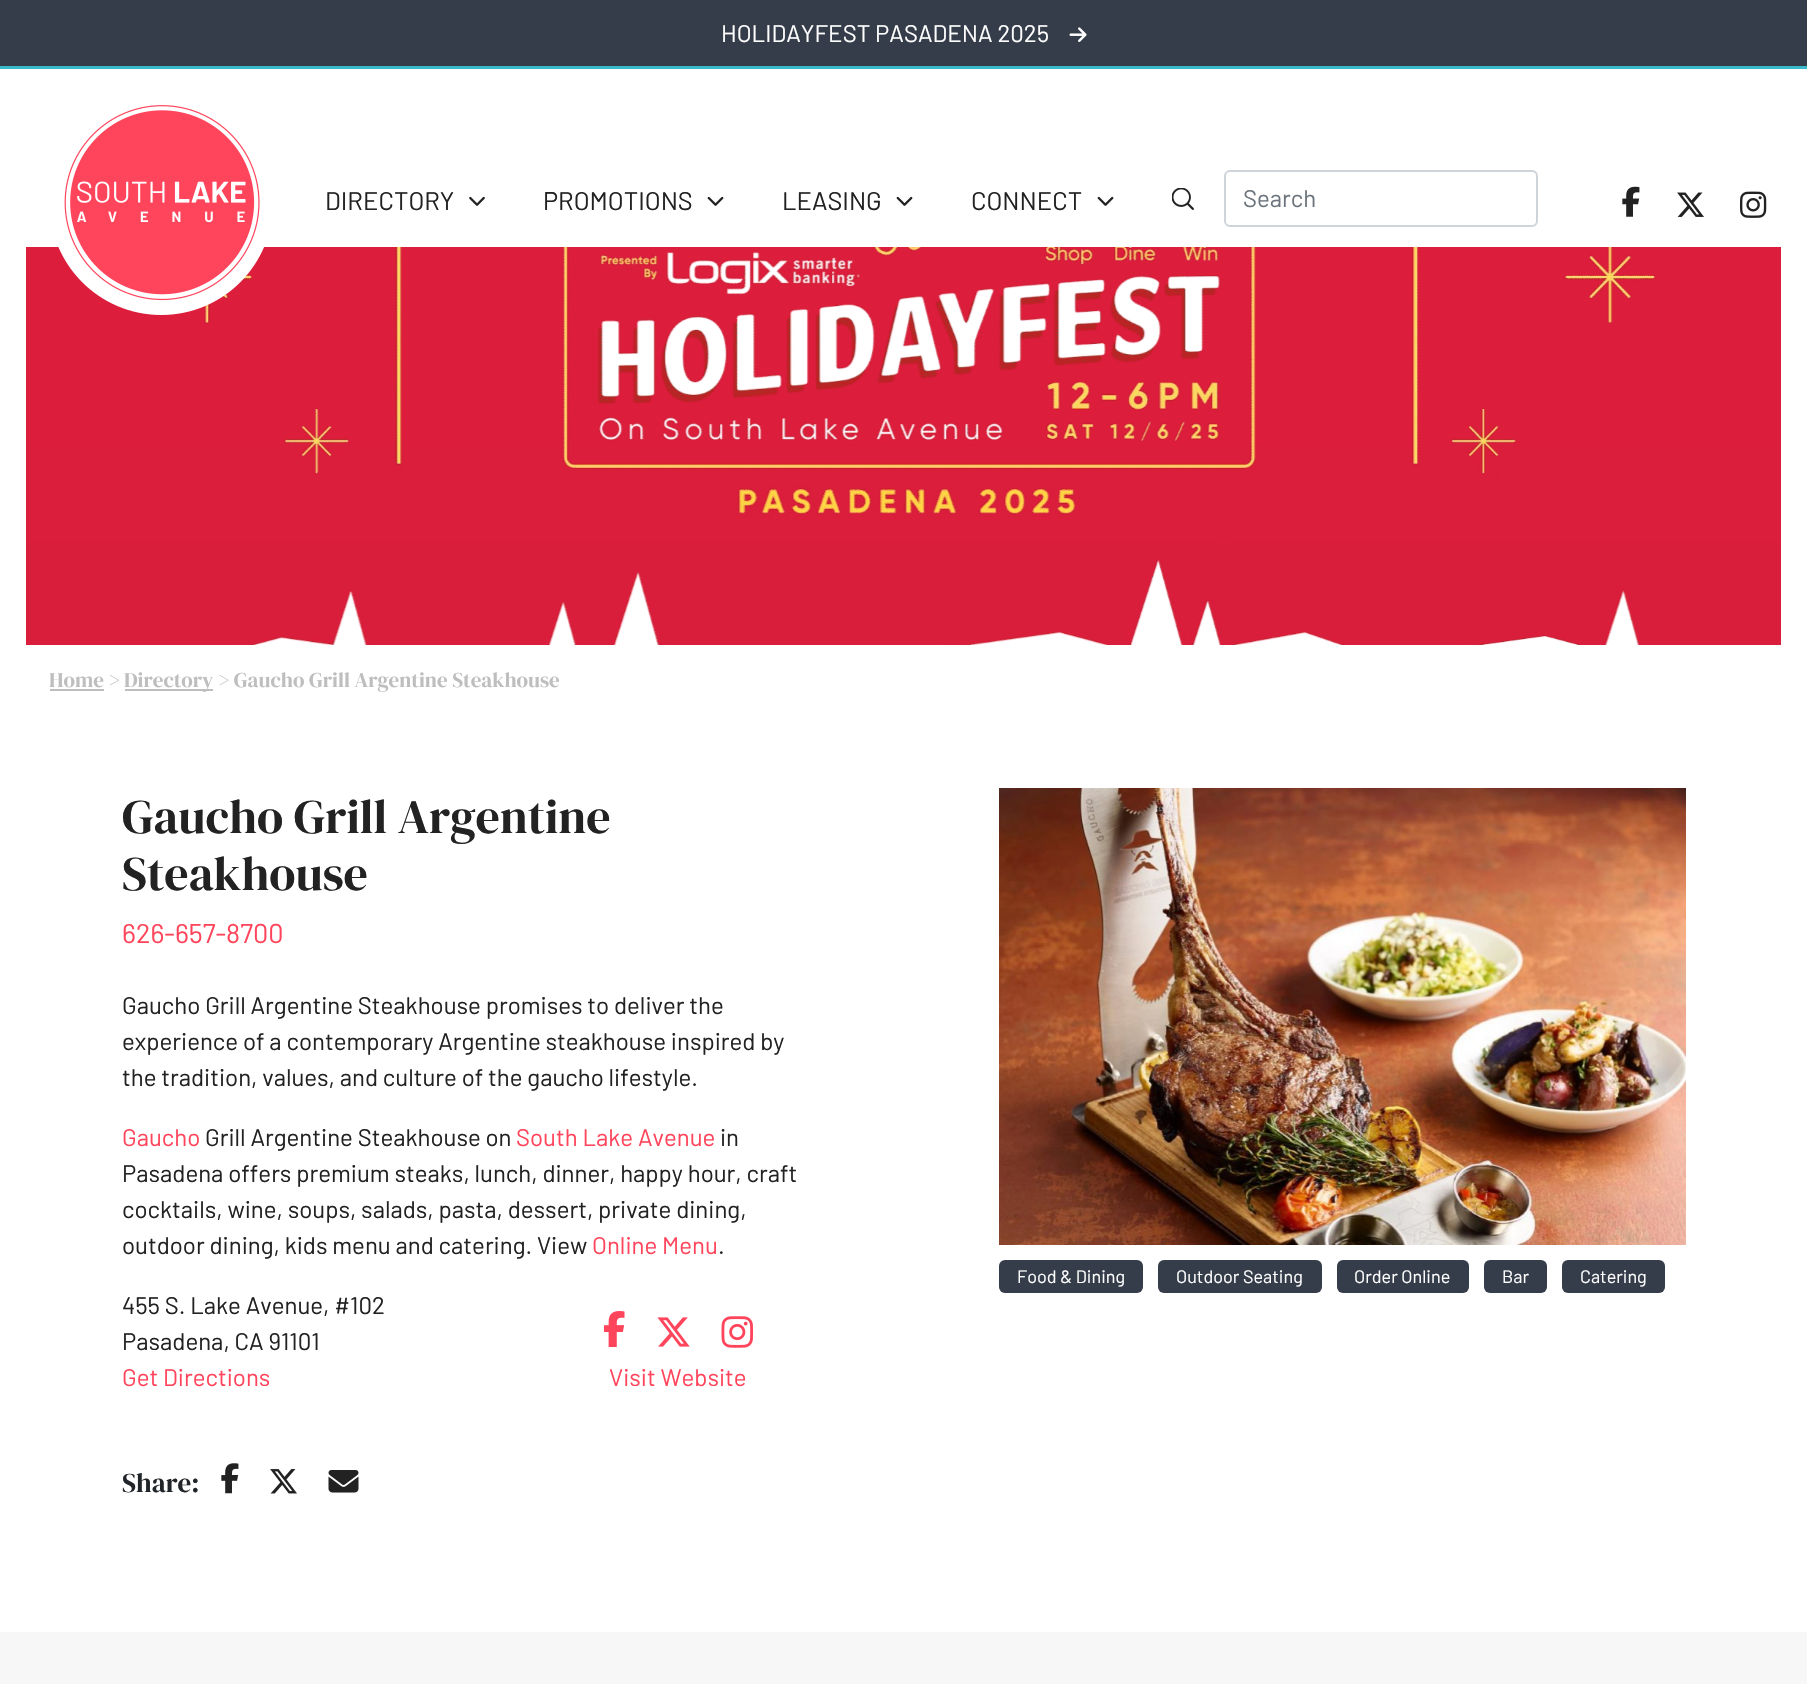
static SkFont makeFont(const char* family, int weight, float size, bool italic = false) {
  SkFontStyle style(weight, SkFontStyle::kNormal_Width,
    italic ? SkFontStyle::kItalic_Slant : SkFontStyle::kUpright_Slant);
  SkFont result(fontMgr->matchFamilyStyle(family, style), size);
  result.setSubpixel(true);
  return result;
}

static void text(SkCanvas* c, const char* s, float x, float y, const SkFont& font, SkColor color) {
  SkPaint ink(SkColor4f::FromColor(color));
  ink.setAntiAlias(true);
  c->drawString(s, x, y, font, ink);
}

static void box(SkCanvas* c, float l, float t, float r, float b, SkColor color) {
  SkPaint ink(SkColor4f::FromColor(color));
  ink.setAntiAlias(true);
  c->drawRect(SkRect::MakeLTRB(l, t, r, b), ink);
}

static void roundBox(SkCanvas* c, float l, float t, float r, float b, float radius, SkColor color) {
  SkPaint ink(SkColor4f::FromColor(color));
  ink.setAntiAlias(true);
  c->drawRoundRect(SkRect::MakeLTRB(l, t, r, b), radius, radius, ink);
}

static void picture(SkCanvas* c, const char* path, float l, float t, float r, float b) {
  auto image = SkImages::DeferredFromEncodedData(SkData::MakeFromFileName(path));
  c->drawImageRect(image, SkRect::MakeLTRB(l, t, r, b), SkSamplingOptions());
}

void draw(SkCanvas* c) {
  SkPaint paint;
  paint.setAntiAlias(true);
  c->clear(0xffffffff);
  box(c, 0, 0, 1807, 66, 0xff353c4a);
  box(c, 0, 66, 1807, 69, 0xff3abac8);
  SkFont face1 = makeFont("Barlow", 400, 24);
  text(c, "HOLIDAYFEST PASADENA 2025", 721, 42, face1, 0xffffffff);
  picture(c, "img_01.png", 1069, 27, 1087, 42);
  picture(c, "img_16.png", 26, 247, 1781, 645);
  picture(c, "img_02.png", 58, 105, 264, 315);
  SkFont face2 = makeFont("Barlow", 400, 25.5f);
  text(c, "DIRECTORY", 325, 210, face2, 0xff222222);
  picture(c, "img_03.png", 469, 196, 485, 206);
  text(c, "PROMOTIONS", 543, 210, face2, 0xff222222);
  picture(c, "img_04.png", 707, 196, 724, 206);
  text(c, "LEASING", 782, 210, face2, 0xff222222);
  picture(c, "img_04.png", 896, 196, 913, 206);
  text(c, "CONNECT", 971, 210, face2, 0xff222222);
  picture(c, "img_04.png", 1097, 196, 1114, 206);
  picture(c, "img_05.png", 1172, 188, 1194, 210);
  paint.setStyle(SkPaint::kStroke_Style);
  paint.setStrokeWidth(2);
  paint.setColor(0xffced4da);
  c->drawRoundRect(SkRect::MakeLTRB(1225, 171, 1537, 226), 5, 5, paint);
  text(c, "Search", 1243, 207, face1, 0xff6c757d);
  picture(c, "img_06.png", 1622, 186, 1640, 217);
  picture(c, "img_07.png", 1677, 192, 1704, 217);
  picture(c, "img_08.png", 1740, 191, 1767, 218);
  SkFont face3 = makeFont("DM Serif Display", 400, 21);
  text(c, "Home >", 49, 687, face3, 0xffbebebe);
  box(c, 50, 689, 104, 691, 0xffbebebe);
  box(c, 125, 689, 213, 691, 0xffbebebe);
  text(c, "Directory > Gaucho Grill Argentine Steakhouse", 124, 687, face3, 0xffbebebe);
  SkFont face4 = makeFont("DM Serif Display", 400, 48);
  text(c, "Gaucho Grill Argentine", 122, 833, face4, 0xff222222);
  text(c, "Steakhouse", 122, 890, face4, 0xff222222);
  SkFont face5 = makeFont("Barlow", 400, 27);
  text(c, "626-657-8700", 122, 943, face5, 0xffff455c);
  text(c, "Gaucho Grill Argentine Steakhouse promises to deliver the", 122, 1014, face1, 0xff222222);
  text(c, "experience of a contemporary Argentine steakhouse inspired by", 122, 1050, face1, 0xff222222);
  text(c, "the tradition, values, and culture of the gaucho lifestyle.", 122, 1086, face1, 0xff222222);
  text(c, "Gaucho", 122, 1146, face1, 0xffff455c);
  text(c, "Grill Argentine Steakhouse on", 205, 1146, face1, 0xff222222);
  text(c, "South Lake Avenue", 516, 1146, face1, 0xffff455c);
  text(c, "in", 720, 1146, face1, 0xff222222);
  text(c, "Pasadena offers premium steaks, lunch, dinner, happy hour, craft", 122, 1182, face1, 0xff222222);
  text(c, "cocktails, wine, soups, salads, pasta, dessert, private dining,", 122, 1218, face1, 0xff222222);
  text(c, "outdoor dining, kids menu and catering. View", 122, 1254, face1, 0xff222222);
  text(c, "Online Menu", 592, 1254, face1, 0xffff455c);
  text(c, ".", 718, 1254, face1, 0xff222222);
  text(c, "455 S. Lake Avenue, #102", 122, 1314, face1, 0xff222222);
  text(c, "Pasadena, CA 91101", 122, 1350, face1, 0xff222222);
  text(c, "Get Directions", 122, 1386, face1, 0xffff455c);
  picture(c, "img_09.png", 604, 1311, 625, 1347);
  picture(c, "img_10.png", 657, 1317, 690, 1347);
  picture(c, "img_11.png", 721, 1316, 753, 1348);
  text(c, "Visit Website", 609, 1386, face1, 0xffff455c);
  SkFont face6 = makeFont("DM Serif Display", 400, 27);
  text(c, "Share:", 122, 1492, face6, 0xff212529);
  picture(c, "img_12.png", 221, 1463, 239, 1494);
  picture(c, "img_13.png", 270, 1469, 297, 1494);
  picture(c, "img_14.png", 328, 1470, 359, 1493);
  picture(c, "img_15.png", 999, 788, 1686, 1245);
  roundBox(c, 999, 1260, 1143, 1293, 6, 0xff353c4a);
  SkFont face7 = makeFont("Barlow", 400, 18);
  text(c, "Food & Dining", 1017, 1283, face7, 0xffffffff);
  roundBox(c, 1158, 1260, 1322, 1293, 6, 0xff353c4a);
  text(c, "Outdoor Seating", 1176, 1283, face7, 0xffffffff);
  roundBox(c, 1337, 1260, 1469, 1293, 6, 0xff353c4a);
  text(c, "Order Online", 1354, 1283, face7, 0xffffffff);
  roundBox(c, 1484, 1260, 1547, 1293, 6, 0xff353c4a);
  text(c, "Bar", 1502, 1283, face7, 0xffffffff);
  roundBox(c, 1562, 1260, 1665, 1293, 6, 0xff353c4a);
  text(c, "Catering", 1580, 1283, face7, 0xffffffff);
  box(c, 0, 1632, 1807, 1684, 0xfff7f7f7);
}
